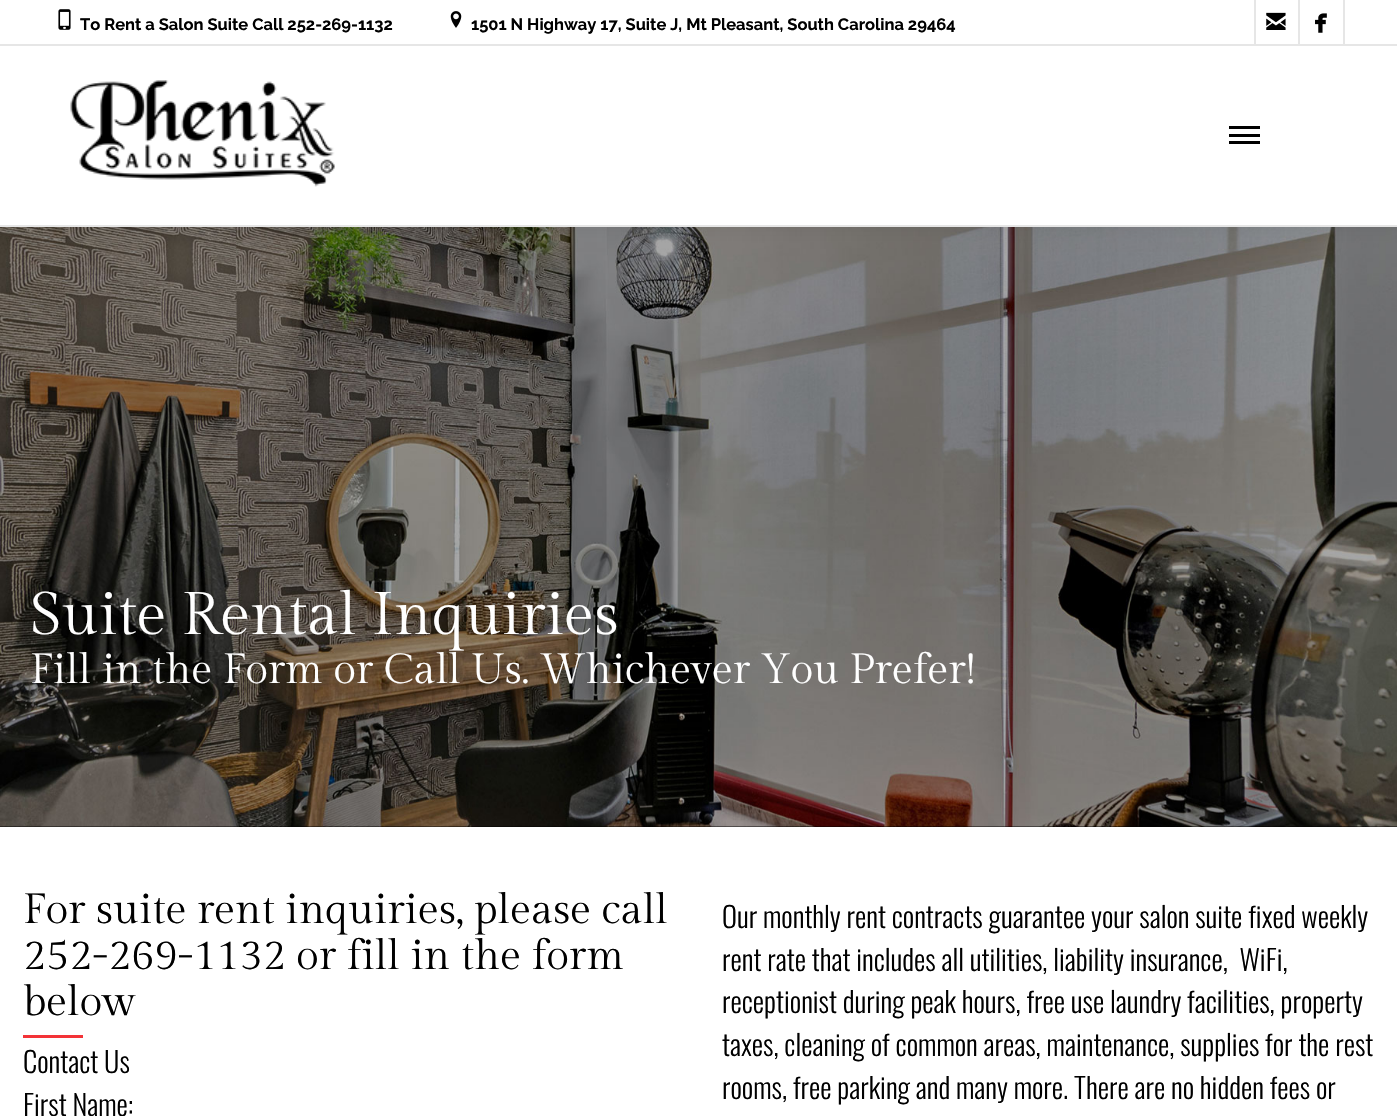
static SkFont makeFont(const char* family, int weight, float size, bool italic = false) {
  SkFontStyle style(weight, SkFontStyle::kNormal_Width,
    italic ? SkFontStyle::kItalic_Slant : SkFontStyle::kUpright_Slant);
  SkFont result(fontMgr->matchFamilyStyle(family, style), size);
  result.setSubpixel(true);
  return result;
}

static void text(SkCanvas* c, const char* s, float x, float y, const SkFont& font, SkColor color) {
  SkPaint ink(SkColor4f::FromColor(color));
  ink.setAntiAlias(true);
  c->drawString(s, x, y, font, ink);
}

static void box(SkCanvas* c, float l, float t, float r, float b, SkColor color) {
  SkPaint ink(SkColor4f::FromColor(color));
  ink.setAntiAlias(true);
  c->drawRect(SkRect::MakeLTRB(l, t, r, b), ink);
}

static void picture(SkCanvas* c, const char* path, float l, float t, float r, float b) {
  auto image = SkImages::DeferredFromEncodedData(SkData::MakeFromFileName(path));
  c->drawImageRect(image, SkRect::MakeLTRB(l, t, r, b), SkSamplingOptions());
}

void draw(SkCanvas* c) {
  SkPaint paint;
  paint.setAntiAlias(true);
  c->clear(0xffffffff);
  box(c, 0, 826, 1397, 827, 0xff000000);
  picture(c, "img_06.png", 0, 227, 1397, 827);
  paint.setColor(0x0d000000);
  paint.setMaskFilter(SkMaskFilter::MakeBlur(kNormal_SkBlurStyle, 7.5f));
  c->drawRect(SkRect::MakeLTRB(0, 3, 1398, 230), paint);
  paint.setMaskFilter(nullptr);
  box(c, 0, 0, 1397, 225, 0xffffffff);
  box(c, 0, 225, 1397, 227, 0xffe6e6e6);
  box(c, 0, 44, 1397, 46, 0xffe6e6e6);
  picture(c, "img_01.png", 58, 9, 71, 30);
  SkFont face1 = makeFont("Raleway", 700, 16.5f);
  text(c, "To Rent a Salon Suite Call 252-269-1132", 80, 30, face1, 0xff000000);
  picture(c, "img_02.png", 450, 11, 462, 28);
  text(c, "1501 N Highway 17, Suite J, Mt Pleasant, South Carolina 29464", 471, 30, face1, 0xff000000);
  box(c, 1298, 0, 1300, 44, 0xffe6e6e6);
  box(c, 1254, 0, 1256, 44, 0xffe6e6e6);
  picture(c, "img_03.png", 1266, 12, 1286, 30);
  box(c, 1343, 0, 1345, 44, 0xffe6e6e6);
  picture(c, "img_04.png", 1315, 13, 1327, 33);
  picture(c, "img_05.png", 70, 80, 335, 187);
  box(c, 1229, 134, 1260, 137, 0xff000000);
  box(c, 1229, 126, 1260, 129, 0xff000000);
  box(c, 1229, 141, 1260, 144, 0xff000000);
  SkFont face2 = makeFont("Gilda Display", 400, 60);
  text(c, "Suite Rental Inquiries", 30, 634, face2, 0xffffffff);
  SkFont face3 = makeFont("Gilda Display", 400, 42);
  text(c, "Fill in the Form or Call Us. Whichever You Prefer!", 30, 683, face3, 0xffffffff);
  text(c, "For suite rent inquiries, please call", 23, 923, face3, 0xff000000);
  text(c, "252-269-1132 or fill in the form", 23, 969, face3, 0xff000000);
  text(c, "below", 23, 1015, face3, 0xff000000);
  box(c, 23, 1035, 83, 1038, 0xfff33337);
  SkFont face4 = makeFont("Oswald", 300, 28.5f);
  text(c, "Contact Us", 23, 1073, face4, 0xff000000);
  text(c, "First Name:", 23, 1116, face4, 0xff000000);
  text(c, "Our monthly rent contracts guarantee your salon suite fixed weekly", 722, 928, face4, 0xff000000);
  text(c, "rent rate that includes all utilities, liability insurance,  WiFi,", 722, 971, face4, 0xff000000);
  text(c, "receptionist during peak hours, free use laundry facilities, property", 722, 1013, face4, 0xff000000);
  text(c, "taxes, cleaning of common areas, maintenance, supplies for the rest", 722, 1056, face4, 0xff000000);
  text(c, "rooms, free parking and many more. There are no hidden fees or", 722, 1099, face4, 0xff000000);
}
